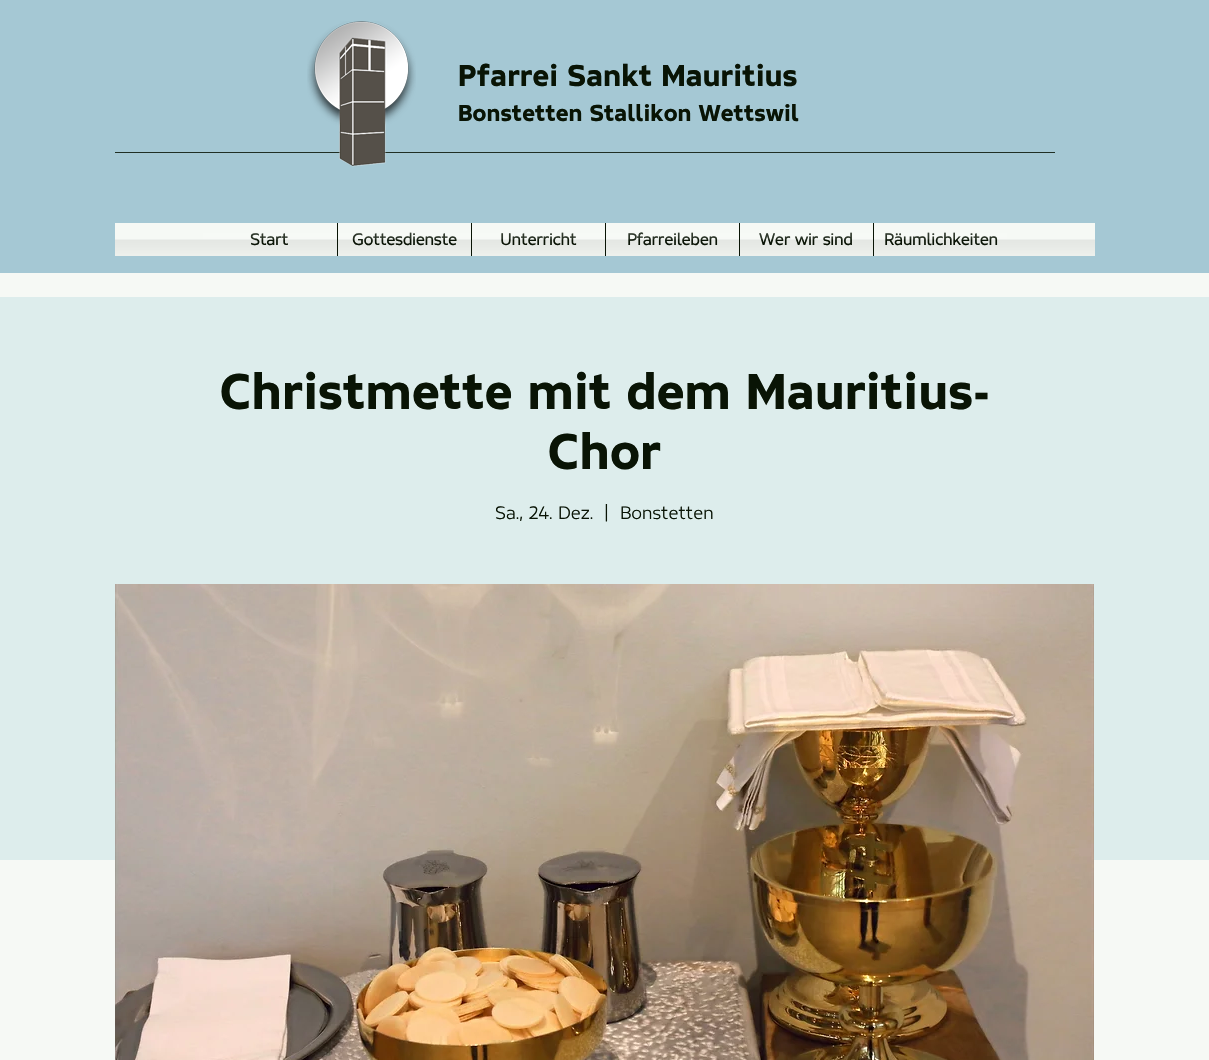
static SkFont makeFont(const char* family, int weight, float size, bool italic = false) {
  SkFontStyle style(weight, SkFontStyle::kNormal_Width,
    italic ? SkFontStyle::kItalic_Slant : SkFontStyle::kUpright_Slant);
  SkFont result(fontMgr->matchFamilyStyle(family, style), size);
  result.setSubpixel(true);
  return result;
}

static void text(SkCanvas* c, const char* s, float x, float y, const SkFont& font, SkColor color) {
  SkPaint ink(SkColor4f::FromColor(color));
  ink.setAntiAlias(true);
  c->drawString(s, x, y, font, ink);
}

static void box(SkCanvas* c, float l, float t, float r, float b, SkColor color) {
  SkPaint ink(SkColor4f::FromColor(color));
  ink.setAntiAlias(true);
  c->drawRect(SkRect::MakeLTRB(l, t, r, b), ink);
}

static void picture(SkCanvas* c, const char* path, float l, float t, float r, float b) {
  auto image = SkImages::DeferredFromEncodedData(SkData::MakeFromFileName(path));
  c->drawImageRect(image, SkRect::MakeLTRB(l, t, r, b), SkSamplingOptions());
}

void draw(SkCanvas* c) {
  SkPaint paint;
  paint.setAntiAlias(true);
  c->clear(0xfff6f9f5);
  box(c, 0, 0, 1209, 273, 0xffa5c8d4);
  box(c, 115, 152, 1055, 153, 0xff202f24);
  picture(c, "img_01.png", 307, 21, 416, 167);
  SkFont face1 = makeFont("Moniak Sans", 900, 30);
  text(c, "Pfarrei Sankt Mauritius", 458, 86, face1, 0xff091405);
  SkFont face2 = makeFont("Moniak Sans", 900, 23);
  text(c, "Bonstetten Stallikon Wettswil", 458, 121, face2, 0xff091405);
  box(c, 115, 223, 1095, 256, 0xfff6f9f5);
  picture(c, "img_02.png", 115, 239, 1095, 256);
  box(c, 203, 239, 337, 256, 0xfff6f9f5);
  SkFont face3 = makeFont("Moniak Sans", 700, 16);
  text(c, "Start", 250, 245, face3, 0xff091405);
  picture(c, "img_03.png", 203, 233, 337, 256);
  box(c, 338, 239, 471, 256, 0xfff6f9f5);
  box(c, 337, 223, 338, 256, 0xff091405);
  text(c, "Gottesdienste", 352, 245, face3, 0xff091405);
  picture(c, "img_04.png", 338, 233, 471, 256);
  box(c, 472, 239, 605, 256, 0xfff6f9f5);
  box(c, 471, 223, 472, 256, 0xff091405);
  text(c, "Unterricht", 500, 245, face3, 0xff091405);
  picture(c, "img_05.png", 472, 233, 605, 256);
  box(c, 606, 239, 739, 256, 0xfff6f9f5);
  box(c, 605, 223, 606, 256, 0xff091405);
  text(c, "Pfarreileben", 627, 245, face3, 0xff091405);
  picture(c, "img_06.png", 606, 233, 739, 256);
  box(c, 740, 239, 873, 256, 0xfff6f9f5);
  box(c, 739, 223, 740, 256, 0xff091405);
  text(c, "Wer wir sind", 759, 245, face3, 0xff091405);
  picture(c, "img_07.png", 740, 233, 873, 256);
  box(c, 874, 239, 1007, 256, 0xfff6f9f5);
  box(c, 873, 223, 874, 256, 0xff091405);
  text(c, "Räumlichkeiten", 884, 245, face3, 0xff091405);
  picture(c, "img_08.png", 874, 233, 1007, 256);
  box(c, 0, 297, 1209, 860, 0xffddedec);
  SkFont face4 = makeFont("Moniak Sans", 900, 50);
  text(c, "Christmette mit dem Mauritius-", 220, 409, face4, 0xff091405);
  text(c, "Chor", 548, 469, face4, 0xff091405);
  SkFont face5 = makeFont("Moniak Sans", 400, 18);
  text(c, "Sa., 24. Dez.", 495, 519, face5, 0xff091405);
  text(c, "|", 604, 519, face5, 0xff091405);
  text(c, "Bonstetten", 620, 519, face5, 0xff091405);
  picture(c, "img_09.png", 115, 584, 1094, 1060);
}
